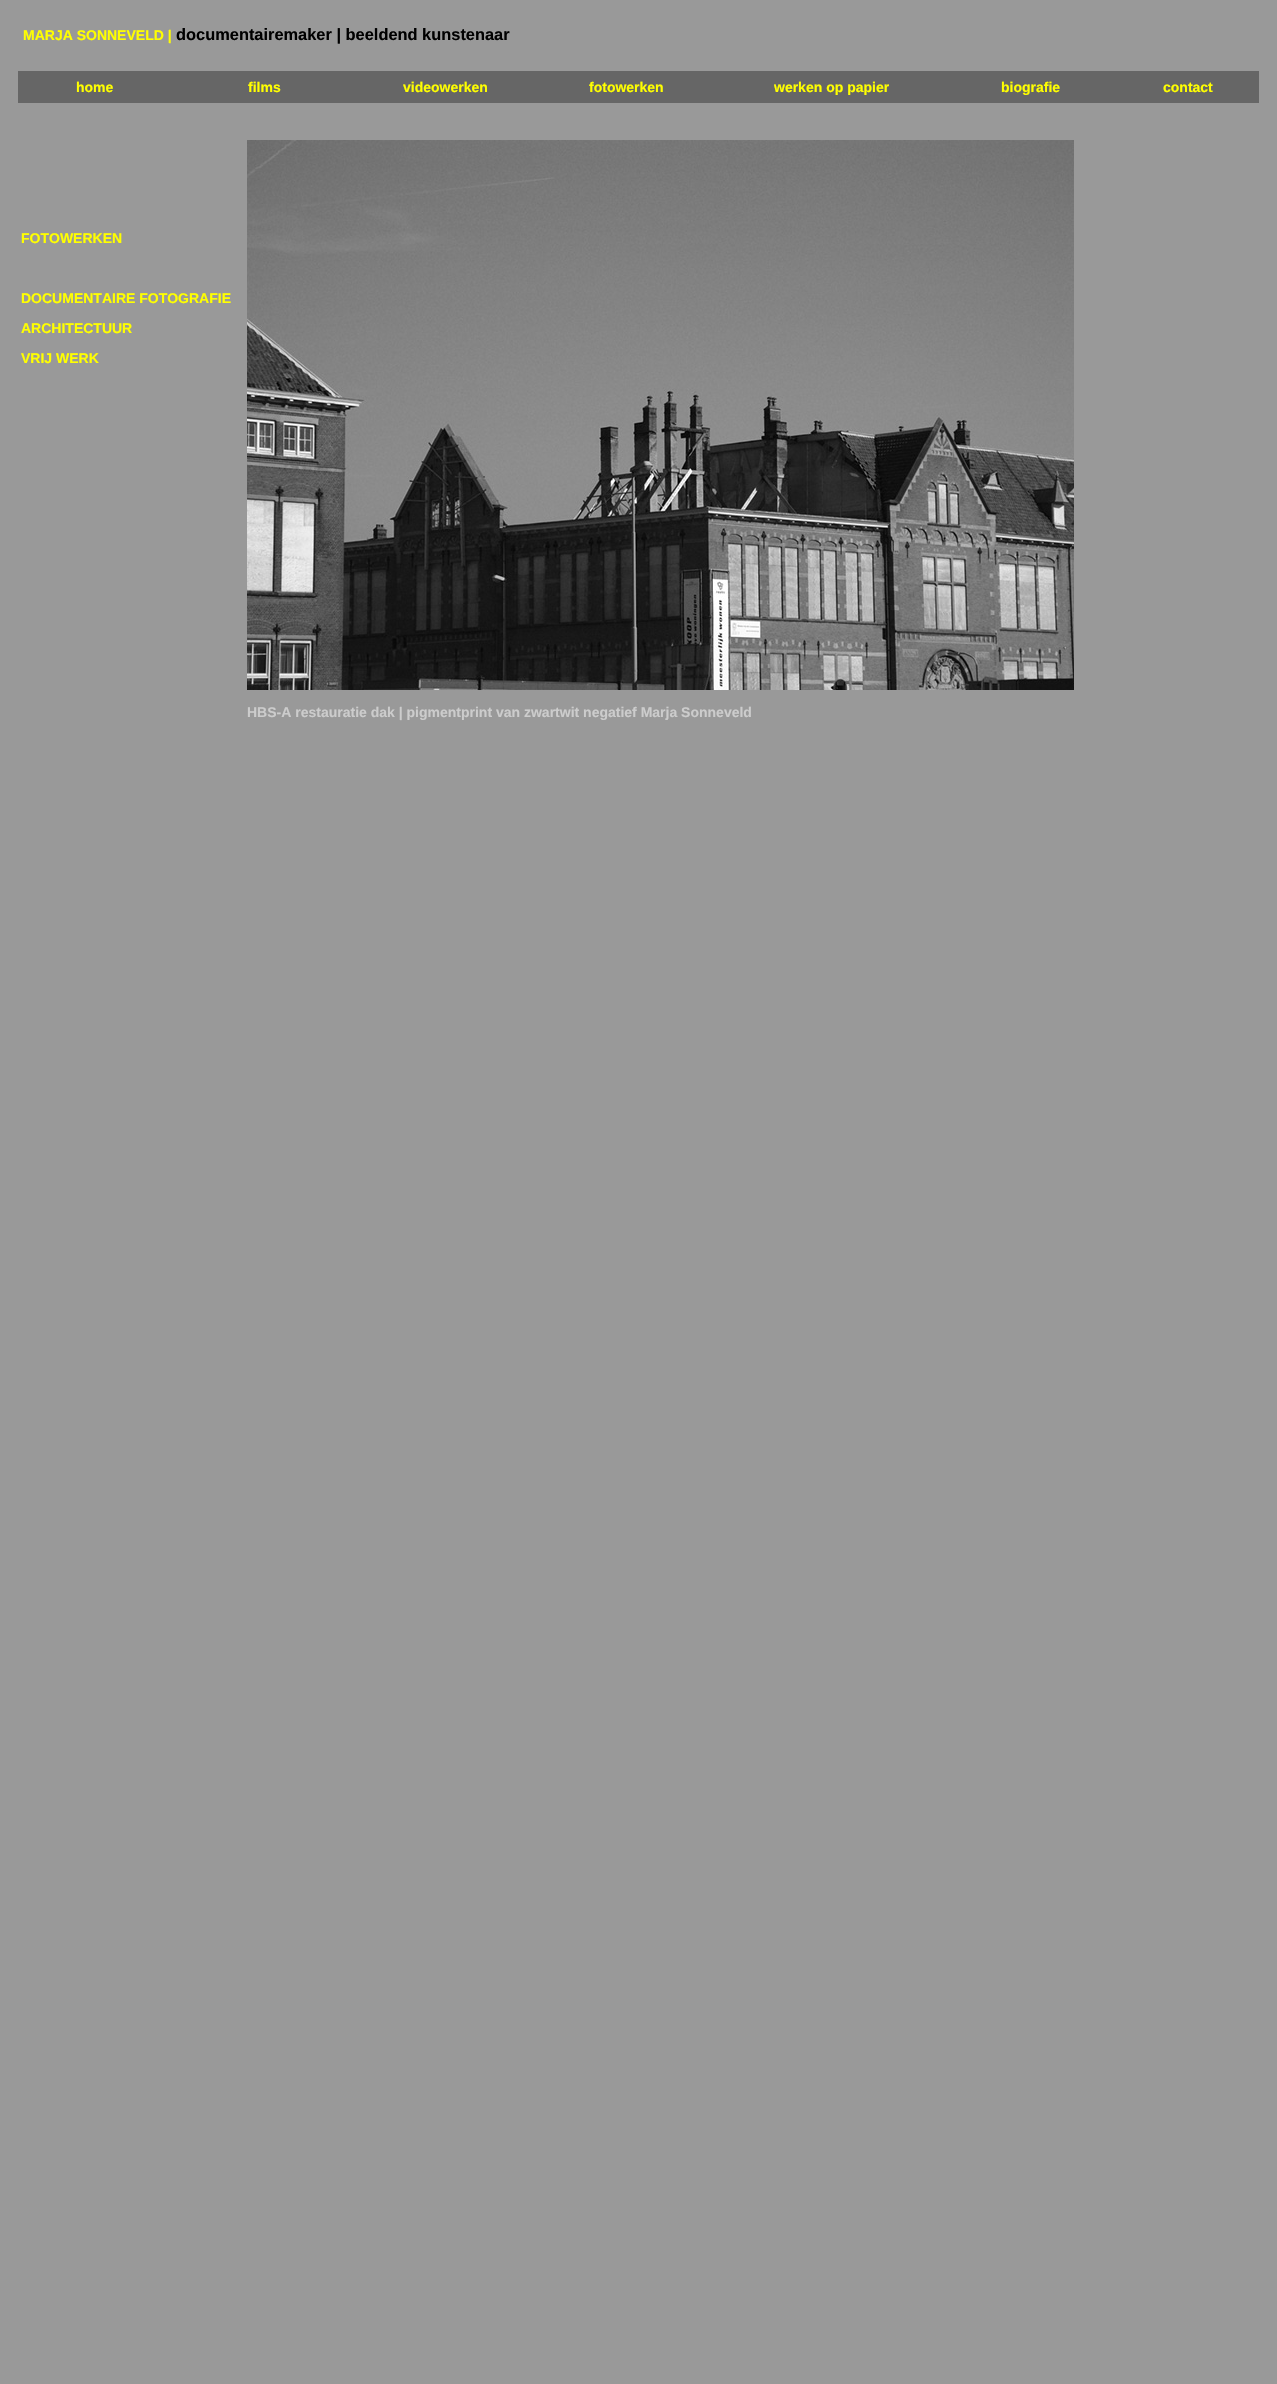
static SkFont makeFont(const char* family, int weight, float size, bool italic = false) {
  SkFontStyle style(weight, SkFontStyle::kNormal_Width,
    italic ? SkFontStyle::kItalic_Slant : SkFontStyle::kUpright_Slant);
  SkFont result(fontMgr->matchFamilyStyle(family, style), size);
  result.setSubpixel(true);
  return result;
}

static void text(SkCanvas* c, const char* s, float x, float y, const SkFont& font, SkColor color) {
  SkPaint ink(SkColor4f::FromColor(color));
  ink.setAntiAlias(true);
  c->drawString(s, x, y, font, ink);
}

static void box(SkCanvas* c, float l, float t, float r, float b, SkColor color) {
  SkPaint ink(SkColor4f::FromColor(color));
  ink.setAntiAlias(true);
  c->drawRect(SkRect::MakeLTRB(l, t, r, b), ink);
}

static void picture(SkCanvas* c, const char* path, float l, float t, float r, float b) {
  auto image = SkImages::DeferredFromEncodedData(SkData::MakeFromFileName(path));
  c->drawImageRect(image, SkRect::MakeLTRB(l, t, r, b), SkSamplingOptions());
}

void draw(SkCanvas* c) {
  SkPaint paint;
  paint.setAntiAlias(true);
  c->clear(0xff999999);
  SkFont face1 = makeFont("Liberation Sans", 700, 14);
  text(c, "MARJA SONNEVELD |", 23, 40, face1, 0xffffff00);
  SkFont face2 = makeFont("Liberation Sans", 700, 16.4f);
  text(c, "documentairemaker | beeldend kunstenaar", 176, 40, face2, 0xff000000);
  box(c, 18, 71, 1259, 103, 0xff666666);
  text(c, "home", 76, 92, face1, 0xffffff00);
  text(c, "films", 248, 92, face1, 0xffffff00);
  text(c, "videowerken", 403, 92, face1, 0xffffff00);
  text(c, "fotowerken", 589, 92, face1, 0xffffff00);
  text(c, "werken op papier", 774, 92, face1, 0xffffff00);
  text(c, "biografie", 1001, 92, face1, 0xffffff00);
  text(c, "contact", 1163, 92, face1, 0xffffff00);
  text(c, "FOTOWERKEN", 21, 243, face1, 0xffffff00);
  text(c, "DOCUMENTAIRE FOTOGRAFIE", 21, 303, face1, 0xffffff00);
  text(c, "ARCHITECTUUR", 21, 333, face1, 0xffffff00);
  text(c, "VRIJ WERK", 21, 363, face1, 0xffffff00);
  picture(c, "img_01.png", 247, 140, 1074, 690);
  text(c, "HBS-A restauratie dak | pigmentprint van zwartwit negatief Marja Sonneveld", 247, 717, face1, 0xffcccccc);
}
